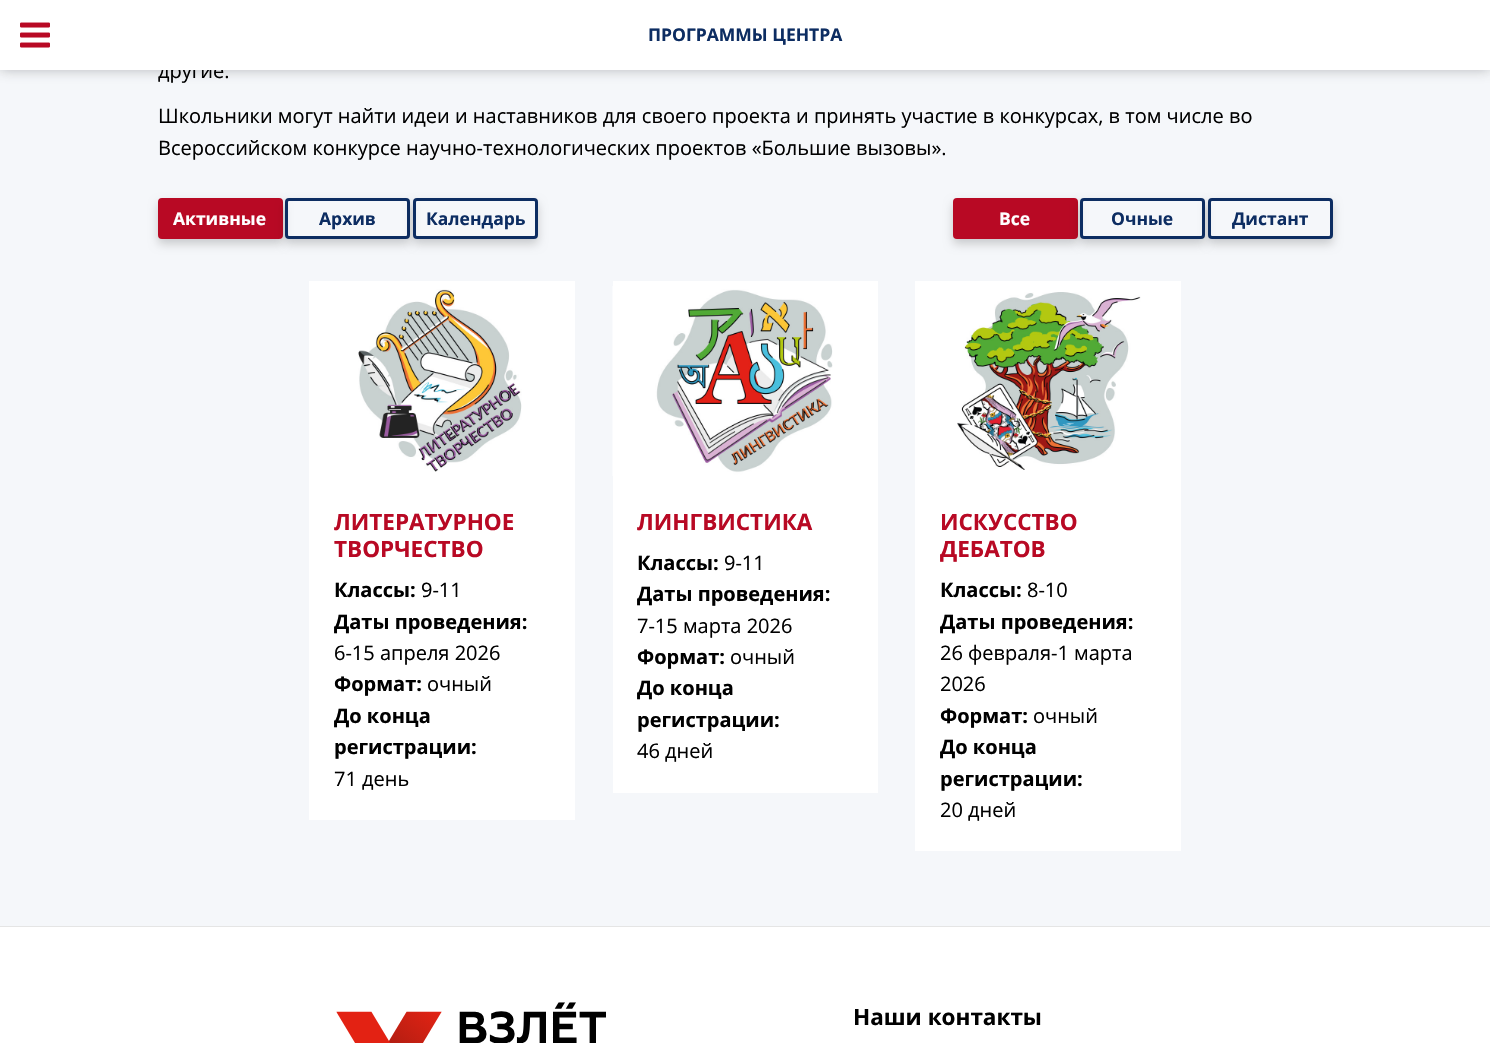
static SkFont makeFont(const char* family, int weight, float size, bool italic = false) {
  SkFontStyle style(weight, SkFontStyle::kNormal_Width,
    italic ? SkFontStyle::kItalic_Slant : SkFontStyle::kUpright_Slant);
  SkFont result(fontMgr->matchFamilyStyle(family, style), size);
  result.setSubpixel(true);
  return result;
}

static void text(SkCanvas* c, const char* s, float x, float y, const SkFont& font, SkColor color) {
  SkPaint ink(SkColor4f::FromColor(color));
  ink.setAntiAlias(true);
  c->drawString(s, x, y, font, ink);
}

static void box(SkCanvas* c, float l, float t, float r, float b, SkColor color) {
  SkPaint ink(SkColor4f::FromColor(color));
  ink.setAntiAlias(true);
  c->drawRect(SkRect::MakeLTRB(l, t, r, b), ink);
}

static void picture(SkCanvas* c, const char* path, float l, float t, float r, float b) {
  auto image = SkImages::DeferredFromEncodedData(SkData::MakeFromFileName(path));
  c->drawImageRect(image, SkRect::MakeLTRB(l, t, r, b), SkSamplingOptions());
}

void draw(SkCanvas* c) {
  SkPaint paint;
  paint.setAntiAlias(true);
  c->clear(0xffffffff);
  box(c, 0, 70, 1490, 926, 0xfff5f7fa);
  paint.setColor(0x59434345);
  paint.setMaskFilter(SkMaskFilter::MakeBlur(kNormal_SkBlurStyle, 6));
  c->drawRect(SkRect::MakeLTRB(0, 0, 1490, 70), paint);
  paint.setMaskFilter(nullptr);
  SkFont face1 = makeFont("Open Sans", 400, 20);
  text(c, "другие.", 158, 78, face1, 0xff000000);
  box(c, 0, 0, 1490, 70, 0xffffffff);
  picture(c, "img_01.png", 20, 22, 50, 48);
  SkFont face2 = makeFont("Open Sans", 700, 17.5f);
  text(c, "ПРОГРАММЫ ЦЕНТРА", 648, 41, face2, 0xff0d2d62);
  text(c, "Школьники могут найти идеи и наставников для своего проекта и принять участие в конкурсах, в том числе во", 158, 123, face1, 0xff000000);
  text(c, "Всероссийском конкурсе научно-технологических проектов «Большие вызовы».", 158, 155, face1, 0xff000000);
  paint.setColor(0x2e000000);
  paint.setMaskFilter(SkMaskFilter::MakeBlur(kNormal_SkBlurStyle, 5));
  c->drawRoundRect(SkRect::MakeLTRB(158, 203, 283, 244), 4, 4, paint);
  paint.setMaskFilter(nullptr);
  paint.setColor(0xffb80924);
  c->drawRoundRect(SkRect::MakeLTRB(159.5f, 199.5f, 281.5f, 237.5f), 2.5f, 2.5f, paint);
  paint.setStyle(SkPaint::kStroke_Style);
  paint.setStrokeWidth(3);
  c->drawRoundRect(SkRect::MakeLTRB(159.5f, 199.5f, 281.5f, 237.5f), 2.5f, 2.5f, paint);
  text(c, "Активные", 173, 225, face2, 0xffffffff);
  c->save();
  c->clipPath(SkPathBuilder(SkPathFillType::kEvenOdd).moveTo(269, 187).lineTo(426, 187).lineTo(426, 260).lineTo(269, 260).close().moveTo(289, 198).lineTo(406, 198).cubicTo(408, 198, 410, 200, 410, 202).lineTo(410, 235).cubicTo(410, 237, 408, 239, 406, 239).lineTo(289, 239).cubicTo(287, 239, 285, 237, 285, 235).lineTo(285, 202).cubicTo(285, 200, 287, 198, 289, 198).close().detach(), true);
  paint.setStyle(SkPaint::kFill_Style);
  paint.setColor(0x2e000000);
  paint.setMaskFilter(SkMaskFilter::MakeBlur(kNormal_SkBlurStyle, 5));
  c->drawRoundRect(SkRect::MakeLTRB(285, 203, 410, 244), 4, 4, paint);
  paint.setMaskFilter(nullptr);
  c->restore();
  paint.setStyle(SkPaint::kStroke_Style);
  paint.setColor(0xff0d2d62);
  c->drawRoundRect(SkRect::MakeLTRB(286.5f, 199.5f, 408.5f, 237.5f), 2.5f, 2.5f, paint);
  text(c, "Архив", 319, 225, face2, 0xff0d2d62);
  c->save();
  c->clipPath(SkPathBuilder(SkPathFillType::kEvenOdd).moveTo(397, 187).lineTo(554, 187).lineTo(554, 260).lineTo(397, 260).close().moveTo(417, 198).lineTo(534, 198).cubicTo(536, 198, 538, 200, 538, 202).lineTo(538, 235).cubicTo(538, 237, 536, 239, 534, 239).lineTo(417, 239).cubicTo(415, 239, 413, 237, 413, 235).lineTo(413, 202).cubicTo(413, 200, 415, 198, 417, 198).close().detach(), true);
  paint.setStyle(SkPaint::kFill_Style);
  paint.setColor(0x2e000000);
  paint.setMaskFilter(SkMaskFilter::MakeBlur(kNormal_SkBlurStyle, 5));
  c->drawRoundRect(SkRect::MakeLTRB(413, 203, 538, 244), 4, 4, paint);
  paint.setMaskFilter(nullptr);
  c->restore();
  paint.setStyle(SkPaint::kStroke_Style);
  paint.setColor(0xff0d2d62);
  c->drawRoundRect(SkRect::MakeLTRB(414.5f, 199.5f, 536.5f, 237.5f), 2.5f, 2.5f, paint);
  text(c, "Календарь", 426, 225, face2, 0xff0d2d62);
  paint.setStyle(SkPaint::kFill_Style);
  paint.setColor(0x2e000000);
  paint.setMaskFilter(SkMaskFilter::MakeBlur(kNormal_SkBlurStyle, 5));
  c->drawRoundRect(SkRect::MakeLTRB(953, 203, 1078, 244), 4, 4, paint);
  paint.setMaskFilter(nullptr);
  paint.setColor(0xffb80924);
  c->drawRoundRect(SkRect::MakeLTRB(954.5f, 199.5f, 1076.5f, 237.5f), 2.5f, 2.5f, paint);
  paint.setStyle(SkPaint::kStroke_Style);
  c->drawRoundRect(SkRect::MakeLTRB(954.5f, 199.5f, 1076.5f, 237.5f), 2.5f, 2.5f, paint);
  text(c, "Все", 999, 225, face2, 0xffffffff);
  c->save();
  c->clipPath(SkPathBuilder(SkPathFillType::kEvenOdd).moveTo(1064, 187).lineTo(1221, 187).lineTo(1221, 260).lineTo(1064, 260).close().moveTo(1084, 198).lineTo(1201, 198).cubicTo(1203, 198, 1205, 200, 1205, 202).lineTo(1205, 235).cubicTo(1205, 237, 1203, 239, 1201, 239).lineTo(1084, 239).cubicTo(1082, 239, 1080, 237, 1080, 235).lineTo(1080, 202).cubicTo(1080, 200, 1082, 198, 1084, 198).close().detach(), true);
  paint.setStyle(SkPaint::kFill_Style);
  paint.setColor(0x2e000000);
  paint.setMaskFilter(SkMaskFilter::MakeBlur(kNormal_SkBlurStyle, 5));
  c->drawRoundRect(SkRect::MakeLTRB(1080, 203, 1205, 244), 4, 4, paint);
  paint.setMaskFilter(nullptr);
  c->restore();
  paint.setStyle(SkPaint::kStroke_Style);
  paint.setColor(0xff0d2d62);
  c->drawRoundRect(SkRect::MakeLTRB(1081.5f, 199.5f, 1203.5f, 237.5f), 2.5f, 2.5f, paint);
  text(c, "Очные", 1111, 225, face2, 0xff0d2d62);
  c->save();
  c->clipPath(SkPathBuilder(SkPathFillType::kEvenOdd).moveTo(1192, 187).lineTo(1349, 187).lineTo(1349, 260).lineTo(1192, 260).close().moveTo(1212, 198).lineTo(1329, 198).cubicTo(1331, 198, 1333, 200, 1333, 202).lineTo(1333, 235).cubicTo(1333, 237, 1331, 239, 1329, 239).lineTo(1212, 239).cubicTo(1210, 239, 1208, 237, 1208, 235).lineTo(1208, 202).cubicTo(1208, 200, 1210, 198, 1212, 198).close().detach(), true);
  paint.setStyle(SkPaint::kFill_Style);
  paint.setColor(0x2e000000);
  paint.setMaskFilter(SkMaskFilter::MakeBlur(kNormal_SkBlurStyle, 5));
  c->drawRoundRect(SkRect::MakeLTRB(1208, 203, 1333, 244), 4, 4, paint);
  paint.setMaskFilter(nullptr);
  c->restore();
  paint.setStyle(SkPaint::kStroke_Style);
  paint.setColor(0xff0d2d62);
  c->drawRoundRect(SkRect::MakeLTRB(1209.5f, 199.5f, 1331.5f, 237.5f), 2.5f, 2.5f, paint);
  text(c, "Дистант", 1232, 225, face2, 0xff0d2d62);
  box(c, 309, 281, 575, 820, 0xffffffff);
  picture(c, "img_02.png", 358, 289, 522, 472);
  SkFont face3 = makeFont("Open Sans", 700, 22.5f);
  text(c, "ЛИТЕРАТУРНОЕ", 334, 530, face3, 0xffb80924);
  text(c, "ТВОРЧЕСТВО", 334, 557, face3, 0xffb80924);
  SkFont face4 = makeFont("Open Sans", 700, 20);
  text(c, "Классы:", 334, 597, face4, 0xff000000);
  text(c, "9-11", 421, 597, face1, 0xff000000);
  text(c, "Даты проведения:", 334, 629, face4, 0xff000000);
  text(c, "6-15 апреля 2026", 334, 660, face1, 0xff000000);
  text(c, "Формат:", 334, 691, face4, 0xff000000);
  text(c, "очный", 427, 691, face1, 0xff000000);
  text(c, "До конца", 334, 723, face4, 0xff000000);
  text(c, "регистрации:", 334, 754, face4, 0xff000000);
  text(c, "71 день", 334, 786, face1, 0xff000000);
  box(c, 613, 281, 878, 793, 0xffffffff);
  picture(c, "img_03.png", 612, 286, 833, 476);
  text(c, "ЛИНГВИСТИКА", 637, 530, face3, 0xffb80924);
  text(c, "Классы:", 637, 570, face4, 0xff000000);
  text(c, "9-11", 724, 570, face1, 0xff000000);
  text(c, "Даты проведения:", 637, 601, face4, 0xff000000);
  text(c, "7-15 марта 2026", 637, 633, face1, 0xff000000);
  text(c, "Формат:", 637, 664, face4, 0xff000000);
  text(c, "очный", 730, 664, face1, 0xff000000);
  text(c, "До конца", 637, 695, face4, 0xff000000);
  text(c, "регистрации:", 637, 727, face4, 0xff000000);
  text(c, "46 дней", 637, 758, face1, 0xff000000);
  box(c, 915, 281, 1181, 851, 0xffffffff);
  picture(c, "img_04.png", 957, 292, 1141, 470);
  text(c, "ИСКУССТВО", 940, 530, face3, 0xffb80924);
  text(c, "ДЕБАТОВ", 940, 557, face3, 0xffb80924);
  text(c, "Классы:", 940, 597, face4, 0xff000000);
  text(c, "8-10", 1027, 597, face1, 0xff000000);
  text(c, "Даты проведения:", 940, 629, face4, 0xff000000);
  text(c, "26 февраля-1 марта", 940, 660, face1, 0xff000000);
  text(c, "2026", 940, 691, face1, 0xff000000);
  text(c, "Формат:", 940, 723, face4, 0xff000000);
  text(c, "очный", 1033, 723, face1, 0xff000000);
  text(c, "До конца", 940, 754, face4, 0xff000000);
  text(c, "регистрации:", 940, 786, face4, 0xff000000);
  text(c, "20 дней", 940, 817, face1, 0xff000000);
  box(c, 0, 926, 1490, 927, 0xffe5e5e5);
  picture(c, "img_05.png", 336, 1002, 606, 1043);
  text(c, "Наши контакты", 853, 1025, face3, 0xff000000);
}
